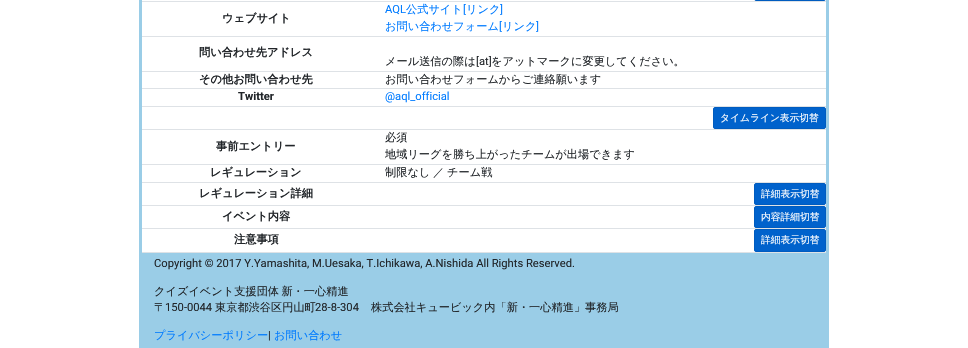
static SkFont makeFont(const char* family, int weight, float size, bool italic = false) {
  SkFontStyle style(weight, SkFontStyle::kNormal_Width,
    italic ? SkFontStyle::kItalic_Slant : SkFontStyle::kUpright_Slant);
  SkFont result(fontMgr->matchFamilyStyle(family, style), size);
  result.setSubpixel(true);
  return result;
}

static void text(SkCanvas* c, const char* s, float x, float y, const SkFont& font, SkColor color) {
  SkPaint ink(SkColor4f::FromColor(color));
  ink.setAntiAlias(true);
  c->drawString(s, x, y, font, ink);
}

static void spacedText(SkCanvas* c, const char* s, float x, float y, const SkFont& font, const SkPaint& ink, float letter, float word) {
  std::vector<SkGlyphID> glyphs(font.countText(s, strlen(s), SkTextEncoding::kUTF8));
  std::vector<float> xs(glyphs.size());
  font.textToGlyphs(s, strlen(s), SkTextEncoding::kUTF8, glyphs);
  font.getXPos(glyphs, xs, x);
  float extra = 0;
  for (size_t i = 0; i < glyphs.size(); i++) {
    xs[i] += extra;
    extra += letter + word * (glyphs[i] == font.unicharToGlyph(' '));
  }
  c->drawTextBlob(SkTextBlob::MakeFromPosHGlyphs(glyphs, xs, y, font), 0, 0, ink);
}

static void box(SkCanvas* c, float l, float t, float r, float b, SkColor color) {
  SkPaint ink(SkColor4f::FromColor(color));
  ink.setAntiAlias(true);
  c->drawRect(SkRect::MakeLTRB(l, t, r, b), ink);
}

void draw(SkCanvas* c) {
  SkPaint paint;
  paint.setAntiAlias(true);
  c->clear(0xffffffff);
  paint.setStyle(SkPaint::kStroke_Style);
  paint.setStrokeWidth(3);
  paint.setColor(0xff9acde7);
  c->drawRect(SkRect::MakeLTRB(140.5f, -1.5f, 827.5f, 254.5f), paint);
  box(c, 142, 1, 826, 2, 0xffdee2e6);
  paint.setStrokeWidth(1);
  paint.setColor(0xff005cbf);
  c->drawRoundRect(SkRect::MakeLTRB(754.5f, -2.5f, 825.5f, 0.5f), 1.5f, 1.5f, paint);
  box(c, 142, 36, 826, 37, 0xffdee2e6);
  SkFont face1 = makeFont("WenQuanYi Zen Hei", 700, 11.2f);
  text(c, "ウェブサイト", 222, 22, face1, 0xff212529);
  SkFont face2 = makeFont("Roboto", 400, 11.2f);
  text(c, "AQL", 385, 13, face2, 0xff007bff);
  SkFont face3 = makeFont("WenQuanYi Zen Hei", 500, 11.2f);
  text(c, "公式サイト", 406, 13, face3, 0xff007bff);
  text(c, "[", 463, 13, face2, 0xff007bff);
  text(c, "リンク", 466, 13, face3, 0xff007bff);
  text(c, "]", 500, 13, face2, 0xff007bff);
  text(c, "お問い合わせフォーム", 385, 30, face3, 0xff007bff);
  text(c, "[", 499, 30, face2, 0xff007bff);
  text(c, "リンク", 502, 30, face3, 0xff007bff);
  text(c, "]", 536, 30, face2, 0xff007bff);
  box(c, 142, 71, 826, 72, 0xffdee2e6);
  text(c, "問い合わせ先アドレス", 199, 56, face1, 0xff212529);
  text(c, "メール送信の際は", 385, 65, face3, 0xff212529);
  text(c, "[at]", 476, 65, face2, 0xff212529);
  text(c, "をアットマークに変更してください。", 491, 65, face3, 0xff212529);
  box(c, 142, 88, 826, 89, 0xffdee2e6);
  text(c, "その他お問い合わせ先", 199, 83, face1, 0xff212529);
  text(c, "お問い合わせフォームからご連絡願います", 385, 83, face3, 0xff212529);
  box(c, 142, 106, 826, 107, 0xffdee2e6);
  SkFont face4 = makeFont("Roboto", 700, 11.2f);
  text(c, "Twitter", 238, 100, face4, 0xff212529);
  text(c, "@aql_official", 385, 100, face2, 0xff007bff);
  box(c, 142, 129, 826, 130, 0xffdee2e6);
  paint.setStyle(SkPaint::kFill_Style);
  paint.setColor(0xff0062cc);
  c->drawRoundRect(SkRect::MakeLTRB(713.5f, 107.5f, 825.5f, 128.5f), 1.5f, 1.5f, paint);
  paint.setStyle(SkPaint::kStroke_Style);
  paint.setColor(0xff005cbf);
  c->drawRoundRect(SkRect::MakeLTRB(713.5f, 107.5f, 825.5f, 128.5f), 1.5f, 1.5f, paint);
  SkFont face5 = makeFont("WenQuanYi Zen Hei", 500, 9.75f);
  text(c, "タイムライン表示切替", 720, 121, face5, 0xffffffff);
  box(c, 142, 164, 826, 165, 0xffdee2e6);
  text(c, "事前エントリー", 216, 150, face1, 0xff212529);
  text(c, "必須", 385, 141, face3, 0xff212529);
  text(c, "地域リーグを勝ち上がったチームが出場できます", 385, 158, face3, 0xff212529);
  box(c, 142, 182, 826, 183, 0xffdee2e6);
  text(c, "レギュレーション", 210, 176, face1, 0xff212529);
  text(c, "制限なし", 385, 176, face3, 0xff212529);
  text(c, "／", 433, 176, face3, 0xff212529);
  text(c, "チーム戦", 447, 176, face3, 0xff212529);
  box(c, 142, 205, 826, 206, 0xffdee2e6);
  text(c, "レギュレーション詳細", 199, 197, face1, 0xff212529);
  paint.setStyle(SkPaint::kFill_Style);
  paint.setColor(0xff0062cc);
  c->drawRoundRect(SkRect::MakeLTRB(754.5f, 183.5f, 825.5f, 204.5f), 1.5f, 1.5f, paint);
  paint.setStyle(SkPaint::kStroke_Style);
  paint.setColor(0xff005cbf);
  c->drawRoundRect(SkRect::MakeLTRB(754.5f, 183.5f, 825.5f, 204.5f), 1.5f, 1.5f, paint);
  text(c, "詳細表示切替", 761, 197, face5, 0xffffffff);
  box(c, 142, 228, 826, 229, 0xffdee2e6);
  text(c, "イベント内容", 222, 220, face1, 0xff212529);
  paint.setStyle(SkPaint::kFill_Style);
  paint.setColor(0xff0062cc);
  c->drawRoundRect(SkRect::MakeLTRB(754.5f, 206.5f, 825.5f, 227.5f), 1.5f, 1.5f, paint);
  paint.setStyle(SkPaint::kStroke_Style);
  paint.setColor(0xff005cbf);
  c->drawRoundRect(SkRect::MakeLTRB(754.5f, 206.5f, 825.5f, 227.5f), 1.5f, 1.5f, paint);
  text(c, "内容詳細切替", 761, 220, face5, 0xffffffff);
  box(c, 142, 252, 826, 253, 0xffdee2e6);
  text(c, "注意事項", 234, 243, face1, 0xff212529);
  paint.setStyle(SkPaint::kFill_Style);
  paint.setColor(0xff0062cc);
  c->drawRoundRect(SkRect::MakeLTRB(754.5f, 229.5f, 825.5f, 251.5f), 1.5f, 1.5f, paint);
  paint.setStyle(SkPaint::kStroke_Style);
  paint.setColor(0xff005cbf);
  c->drawRoundRect(SkRect::MakeLTRB(754.5f, 229.5f, 825.5f, 251.5f), 1.5f, 1.5f, paint);
  text(c, "詳細表示切替", 761, 243, face5, 0xffffffff);
  box(c, 139, 256, 829, 348, 0xff9acde7);
  text(c, "Copyright © 2017 Y.Yamashita, M.Uesaka, T.Ichikawa, A.Nishida All Rights Reserved.", 154, 267, face2, 0xff212529);
  paint.setStyle(SkPaint::kFill_Style);
  paint.setColor(0xff212529);
  spacedText(c, "クイズイベント支援団体 新・一心精進", 154, 295, face3, paint, 0, -1);
  text(c, "〒", 154, 311, face3, 0xff212529);
  text(c, "150-0044", 165, 311, face2, 0xff212529);
  text(c, "東京都渋谷区円山町", 215, 311, face3, 0xff212529);
  text(c, "28-8-304", 315, 311, face2, 0xff212529);
  text(c, "株式会社キュービック内「新・一心精進」事務局", 371, 311, face3, 0xff212529);
  text(c, "プライバシーポリシー", 154, 339, face3, 0xff007bff);
  text(c, "|", 268, 339, face2, 0xff212529);
  text(c, "お問い合わせ", 274, 339, face3, 0xff007bff);
}
